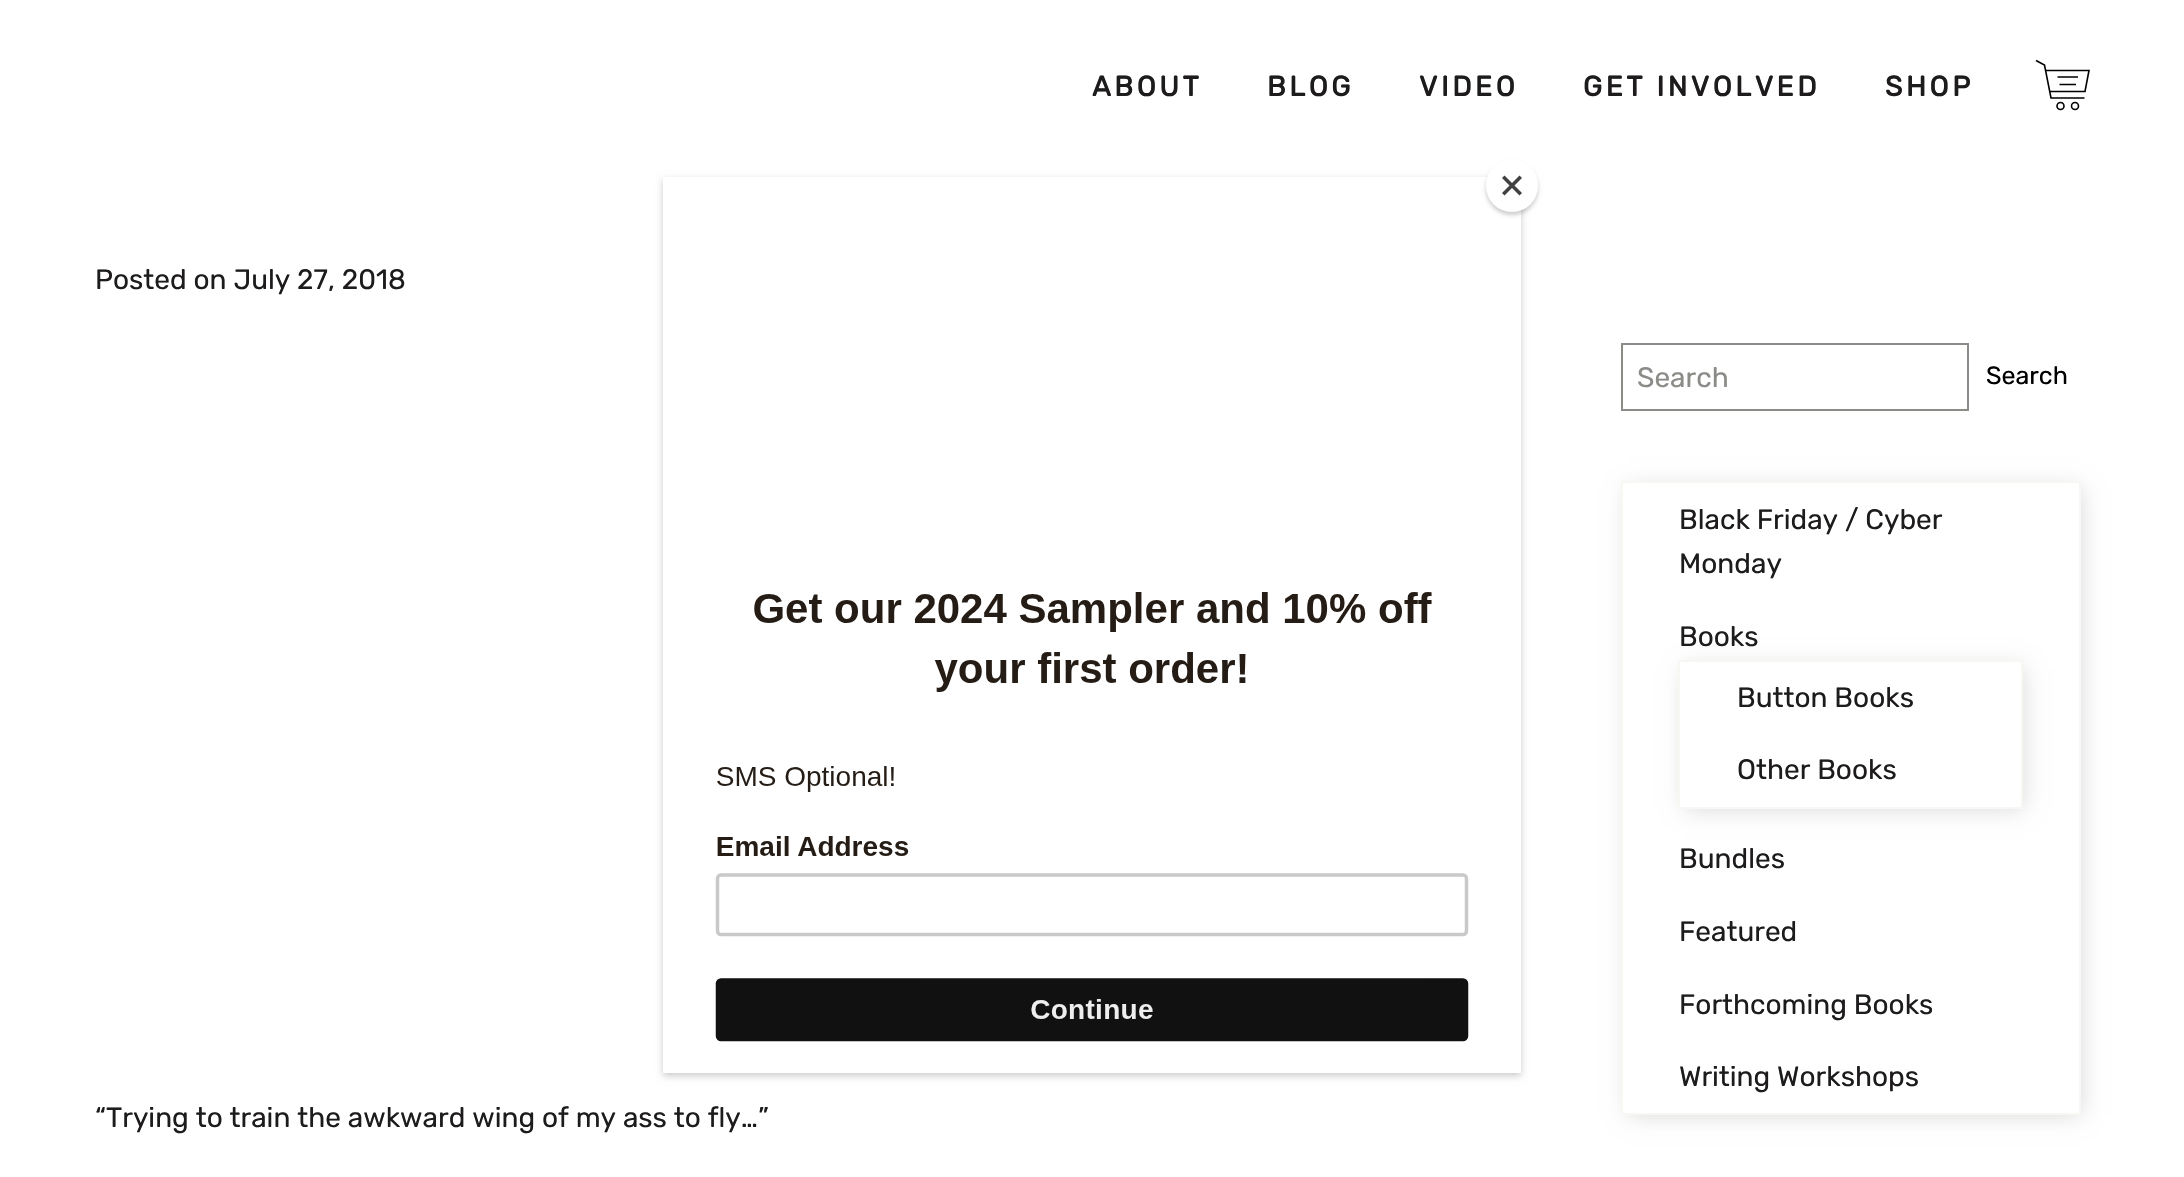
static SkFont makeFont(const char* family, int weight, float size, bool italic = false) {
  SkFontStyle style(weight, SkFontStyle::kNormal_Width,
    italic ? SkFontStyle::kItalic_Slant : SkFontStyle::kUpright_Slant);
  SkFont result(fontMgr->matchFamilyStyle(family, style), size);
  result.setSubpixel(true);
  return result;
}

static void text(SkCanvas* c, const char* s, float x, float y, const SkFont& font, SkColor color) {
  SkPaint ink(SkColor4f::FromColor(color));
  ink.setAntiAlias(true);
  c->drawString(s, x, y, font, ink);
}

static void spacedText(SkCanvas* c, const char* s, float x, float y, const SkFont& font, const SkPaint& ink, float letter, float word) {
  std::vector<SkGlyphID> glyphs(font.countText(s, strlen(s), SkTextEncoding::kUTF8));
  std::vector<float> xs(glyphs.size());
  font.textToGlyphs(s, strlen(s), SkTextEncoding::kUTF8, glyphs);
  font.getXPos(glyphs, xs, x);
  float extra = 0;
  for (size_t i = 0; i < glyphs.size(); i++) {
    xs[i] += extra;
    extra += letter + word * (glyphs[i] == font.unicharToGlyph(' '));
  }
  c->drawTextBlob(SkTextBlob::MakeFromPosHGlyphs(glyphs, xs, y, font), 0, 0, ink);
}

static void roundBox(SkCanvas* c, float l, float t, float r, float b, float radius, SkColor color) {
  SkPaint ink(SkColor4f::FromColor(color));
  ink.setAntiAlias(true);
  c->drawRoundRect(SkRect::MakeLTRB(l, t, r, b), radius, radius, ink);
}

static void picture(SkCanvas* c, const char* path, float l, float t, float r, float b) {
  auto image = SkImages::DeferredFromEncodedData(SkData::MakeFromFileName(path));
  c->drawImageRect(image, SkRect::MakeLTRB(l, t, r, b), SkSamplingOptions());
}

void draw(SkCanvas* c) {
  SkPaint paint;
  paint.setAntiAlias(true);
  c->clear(0xffffffff);
  SkFont face1 = makeFont("Rubik", 700, 28);
  paint.setColor(0xff1d1b1b);
  spacedText(c, "ABOUT", 1092, 96, face1, paint, 3.6f, 0);
  spacedText(c, "BLOG", 1267, 96, face1, paint, 3.6f, 0);
  spacedText(c, "VIDEO", 1419, 96, face1, paint, 3.6f, 0);
  spacedText(c, "GET INVOLVED", 1583, 96, face1, paint, 3.6f, 0);
  spacedText(c, "SHOP", 1885, 96, face1, paint, 3.6f, 0);
  paint.setStyle(SkPaint::kStroke_Style);
  paint.setStrokeWidth(1.6f);
  paint.setColor(0xff000000);
  c->drawPath(SkPathBuilder().moveTo(2036, 60.5f).lineTo(2044.5f, 65).lineTo(2051, 98).lineTo(2084.5f, 98).moveTo(2046, 70.5f).lineTo(2089, 70.5f).lineTo(2085, 91.5f).lineTo(2050, 91.5f).moveTo(2057.5f, 77).lineTo(2078, 77).moveTo(2059.5f, 84.5f).lineTo(2076, 84.5f).detach(), paint);
  c->drawCircle(2060.5f, 106, 3.5f, paint);
  c->drawCircle(2075, 106, 3.5f, paint);
  SkFont face2 = makeFont("Rubik", 300, 28);
  text(c, "Posted on July 27, 2018", 95, 289, face2, 0xff1d1b1b);
  text(c, "“Trying to train the awkward wing of my ass to fly…”", 95, 1127, face2, 0xff1d1b1b);
  paint.setStrokeWidth(2);
  paint.setColor(0xff8a8c88);
  c->drawRect(SkRect::MakeLTRB(1622, 344, 1968, 410), paint);
  text(c, "Search", 1637, 387, face2, 0xff8a8c88);
  SkFont face3 = makeFont("Rubik", 300, 25);
  text(c, "Search", 1986, 384, face3, 0xff000000);
  c->save();
  c->clipPath(SkPathBuilder(SkPathFillType::kEvenOdd).moveTo(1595, 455).lineTo(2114, 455).lineTo(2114, 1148).lineTo(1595, 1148).close().moveTo(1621, 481).lineTo(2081, 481).lineTo(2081, 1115).lineTo(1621, 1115).close().detach(), true);
  paint.setStyle(SkPaint::kFill_Style);
  paint.setColor(0x26000000);
  paint.setMaskFilter(SkMaskFilter::MakeBlur(kNormal_SkBlurStyle, 10.5f));
  c->drawRect(SkRect::MakeLTRB(1628, 488, 2081, 1115), paint);
  paint.setMaskFilter(nullptr);
  c->restore();
  paint.setStyle(SkPaint::kStroke_Style);
  paint.setColor(0x80f2efea);
  c->drawRect(SkRect::MakeLTRB(1622, 482, 2080, 1114), paint);
  text(c, "Black Friday / Cyber", 1679, 529, face2, 0xff1d1b1b);
  text(c, "Monday", 1679, 573, face2, 0xff1d1b1b);
  c->save();
  c->clipPath(SkPathBuilder(SkPathFillType::kEvenOdd).moveTo(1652, 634).lineTo(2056, 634).lineTo(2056, 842).lineTo(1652, 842).close().moveTo(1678, 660).lineTo(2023, 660).lineTo(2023, 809).lineTo(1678, 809).close().detach(), true);
  paint.setStyle(SkPaint::kFill_Style);
  paint.setColor(0x26000000);
  paint.setMaskFilter(SkMaskFilter::MakeBlur(kNormal_SkBlurStyle, 10.5f));
  c->drawRect(SkRect::MakeLTRB(1685, 667, 2023, 809), paint);
  paint.setMaskFilter(nullptr);
  c->restore();
  text(c, "Books", 1679, 646, face2, 0xff1d1b1b);
  paint.setStyle(SkPaint::kStroke_Style);
  paint.setColor(0x80f2efea);
  c->drawRect(SkRect::MakeLTRB(1679, 661, 2022, 808), paint);
  text(c, "Button Books", 1737, 707, face2, 0xff1d1b1b);
  text(c, "Other Books", 1737, 779, face2, 0xff1d1b1b);
  text(c, "Bundles", 1679, 868, face2, 0xff1d1b1b);
  text(c, "Featured", 1679, 941, face2, 0xff1d1b1b);
  text(c, "Forthcoming Books", 1679, 1014, face2, 0xff1d1b1b);
  text(c, "Writing Workshops", 1679, 1086, face2, 0xff1d1b1b);
  c->save();
  c->clipPath(SkPathBuilder(SkPathFillType::kEvenOdd).moveTo(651, 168).lineTo(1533, 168).lineTo(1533, 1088).lineTo(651, 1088).close().moveTo(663, 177).lineTo(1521, 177).lineTo(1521, 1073).lineTo(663, 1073).close().detach(), true);
  paint.setStyle(SkPaint::kFill_Style);
  paint.setColor(0x33000000);
  paint.setMaskFilter(SkMaskFilter::MakeBlur(kNormal_SkBlurStyle, 3.5f));
  c->drawRect(SkRect::MakeLTRB(663, 180, 1521, 1076), paint);
  paint.setMaskFilter(nullptr);
  c->restore();
  picture(c, "img_01.png", 663, 181, 1521, 1073);
  paint.setMaskFilter(SkMaskFilter::MakeBlur(kNormal_SkBlurStyle, 2));
  c->drawRoundRect(SkRect::MakeLTRB(1486, 163, 1538, 215), 26, 26, paint);
  paint.setMaskFilter(nullptr);
  roundBox(c, 1486, 159, 1538, 212, 26, 0xffffffff);
  paint.setColor(0xff414141);
  c->drawPath(SkPathBuilder().moveTo(1519.5f, 175.5f).lineTo(1522, 178).lineTo(1504.5f, 195.5f).lineTo(1502, 193).close().detach(), paint);
  c->drawPath(SkPathBuilder().moveTo(1502, 178).lineTo(1504.5f, 175.5f).lineTo(1522, 193).lineTo(1519.5f, 195.5f).close().detach(), paint);
}
